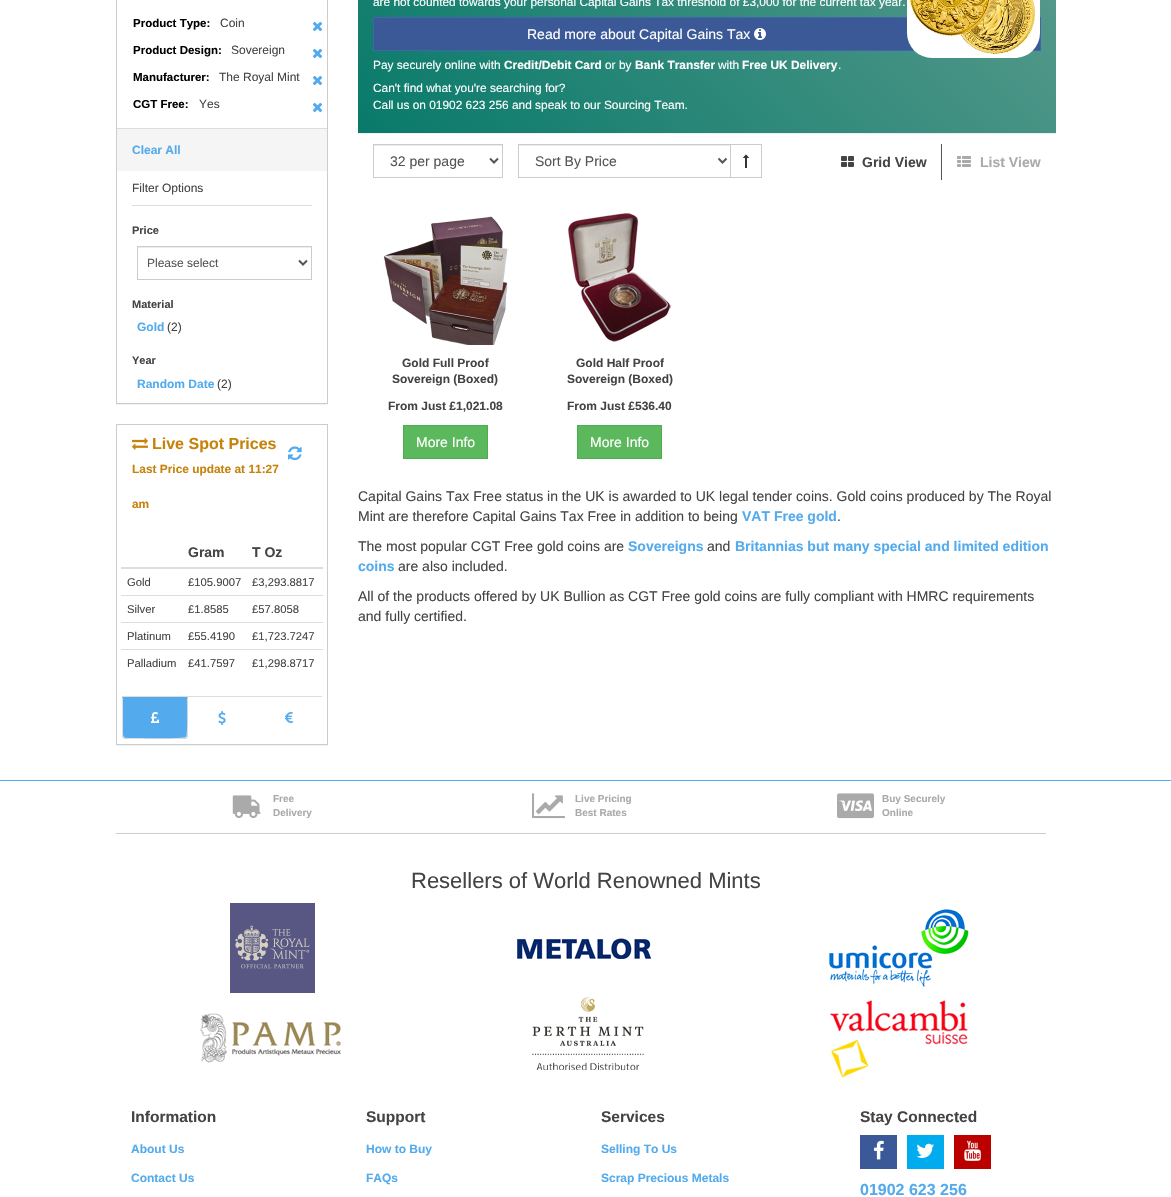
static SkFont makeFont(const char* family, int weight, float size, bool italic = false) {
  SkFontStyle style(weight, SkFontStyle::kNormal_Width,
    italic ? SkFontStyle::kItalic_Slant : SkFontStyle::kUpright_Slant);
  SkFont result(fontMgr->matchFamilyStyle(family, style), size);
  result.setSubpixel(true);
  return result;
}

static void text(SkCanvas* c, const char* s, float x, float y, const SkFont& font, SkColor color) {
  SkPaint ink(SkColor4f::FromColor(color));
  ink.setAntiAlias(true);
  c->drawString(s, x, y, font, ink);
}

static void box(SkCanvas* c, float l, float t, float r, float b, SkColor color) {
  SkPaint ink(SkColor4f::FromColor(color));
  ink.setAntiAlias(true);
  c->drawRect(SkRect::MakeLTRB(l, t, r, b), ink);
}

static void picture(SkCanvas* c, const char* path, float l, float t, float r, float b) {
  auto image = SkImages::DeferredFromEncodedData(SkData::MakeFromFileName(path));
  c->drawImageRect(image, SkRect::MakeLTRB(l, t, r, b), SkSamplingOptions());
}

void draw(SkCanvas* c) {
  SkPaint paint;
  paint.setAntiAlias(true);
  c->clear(0xffffffff);
  c->save();
  c->clipRect(SkRect::MakeLTRB(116, 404, 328, 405));
  paint.setColor(0x0d000000);
  paint.setMaskFilter(SkMaskFilter::MakeBlur(kNormal_SkBlurStyle, 0.5f));
  c->drawRect(SkRect::MakeLTRB(116, -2, 328, 405), paint);
  paint.setMaskFilter(nullptr);
  c->restore();
  paint.setStyle(SkPaint::kStroke_Style);
  paint.setStrokeWidth(1);
  paint.setColor(0xffcccccc);
  c->drawRect(SkRect::MakeLTRB(116.5f, -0.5f, 327.5f, 403.5f), paint);
  SkFont face1 = makeFont("Liberation Sans", 700, 11.5f);
  text(c, "Product Type:", 133, 27, face1, 0xff000000);
  SkFont face2 = makeFont("Liberation Sans", 400, 12);
  text(c, "Coin", 220, 27, face2, 0xff444444);
  picture(c, "img_01.png", 312, 21, 323, 32);
  text(c, "Product Design:", 133, 54, face1, 0xff000000);
  text(c, "Sovereign", 231, 54, face2, 0xff444444);
  picture(c, "img_01.png", 312, 48, 323, 59);
  text(c, "Manufacturer:", 133, 81, face1, 0xff000000);
  text(c, "The Royal Mint", 219, 81, face2, 0xff444444);
  picture(c, "img_01.png", 312, 75, 323, 86);
  text(c, "CGT Free:", 133, 108, face1, 0xff000000);
  text(c, "Yes", 199, 108, face2, 0xff444444);
  picture(c, "img_01.png", 312, 102, 323, 113);
  box(c, 117, 129, 327, 171, 0xfff5f5f5);
  box(c, 117, 128, 327, 129, 0xffdddddd);
  SkFont face3 = makeFont("Liberation Sans", 700, 12);
  text(c, "Clear All", 132, 154, face3, 0xff53abee);
  box(c, 132, 205, 312, 206, 0xffdddddd);
  text(c, "Filter Options", 132, 192, face2, 0xff444444);
  SkFont face4 = makeFont("Liberation Sans", 700, 11);
  text(c, "Price", 132, 234, face4, 0xff444444);
  box(c, 138, 247, 311, 248, 0xffececec);
  c->drawRect(SkRect::MakeLTRB(137.5f, 246.5f, 311.5f, 279.5f), paint);
  paint.setStrokeWidth(2);
  paint.setColor(0xff555555);
  c->drawPath(SkPathBuilder().moveTo(299, 260.5f).lineTo(303, 264.5f).lineTo(307, 260.5f).detach(), paint);
  text(c, "Please select", 147, 267, face2, 0xff555555);
  text(c, "Material", 132, 308, face4, 0xff444444);
  text(c, "Gold", 137, 331, face3, 0xff53abee);
  text(c, "(2)", 167, 331, face2, 0xff444444);
  text(c, "Year", 132, 364, face4, 0xff444444);
  text(c, "Random Date", 137, 388, face3, 0xff53abee);
  text(c, "(2)", 217, 388, face2, 0xff444444);
  c->save();
  c->clipRect(SkRect::MakeLTRB(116, 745, 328, 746));
  paint.setStyle(SkPaint::kFill_Style);
  paint.setColor(0x0d000000);
  paint.setMaskFilter(SkMaskFilter::MakeBlur(kNormal_SkBlurStyle, 0.5f));
  c->drawRect(SkRect::MakeLTRB(116, 425, 328, 746), paint);
  paint.setMaskFilter(nullptr);
  c->restore();
  paint.setStyle(SkPaint::kStroke_Style);
  paint.setStrokeWidth(1);
  paint.setColor(0xffcccccc);
  c->drawRect(SkRect::MakeLTRB(116.5f, 424.5f, 327.5f, 744.5f), paint);
  picture(c, "img_02.png", 132, 437, 148, 450);
  SkFont face5 = makeFont("Liberation Sans", 700, 16);
  text(c, "Live Spot Prices", 152, 449, face5, 0xffc7820a);
  picture(c, "img_03.png", 288, 446, 302, 461);
  SkFont face6 = makeFont("Liberation Sans", 700, 11.9f);
  text(c, "Last Price update at 11:27", 132, 473, face6, 0xffc7820a);
  text(c, "am", 132, 508, face6, 0xffc7820a);
  SkFont face7 = makeFont("Liberation Sans", 700, 14);
  text(c, "Gram", 188, 557, face7, 0xff444444);
  box(c, 121, 567, 323, 569, 0xffdddddd);
  text(c, "T Oz", 252, 557, face7, 0xff444444);
  SkFont face8 = makeFont("Liberation Sans", 400, 11.25f);
  text(c, "Gold", 127, 586, face8, 0xff444444);
  text(c, "£105.9007", 188, 586, face8, 0xff444444);
  text(c, "£3,293.8817", 252, 586, face8, 0xff444444);
  text(c, "Silver", 127, 613, face8, 0xff444444);
  text(c, "£1.8585", 188, 613, face8, 0xff444444);
  box(c, 121, 595, 323, 596, 0xffdddddd);
  text(c, "£57.8058", 252, 613, face8, 0xff444444);
  text(c, "Platinum", 127, 640, face8, 0xff444444);
  text(c, "£55.4190", 188, 640, face8, 0xff444444);
  box(c, 121, 622, 323, 623, 0xffdddddd);
  text(c, "£1,723.7247", 252, 640, face8, 0xff444444);
  text(c, "Palladium", 127, 667, face8, 0xff444444);
  text(c, "£41.7597", 188, 667, face8, 0xff444444);
  box(c, 121, 649, 323, 650, 0xffdddddd);
  text(c, "£1,298.8717", 252, 667, face8, 0xff444444);
  box(c, 122, 696, 322, 697, 0xffdddddd);
  paint.setStyle(SkPaint::kFill_Style);
  paint.setColor(0xff53abee);
  c->drawPath(SkPathBuilder().moveTo(122, 697).lineTo(188, 697).lineTo(188, 735).cubicTo(188, 737, 186, 739, 184, 739).lineTo(126, 739).cubicTo(124, 739, 122, 737, 122, 735).close().detach(), paint);
  paint.setColor(0xffdddddd);
  c->drawPath(SkPathBuilder().moveTo(188, 697).lineTo(187, 698).cubicTo(187, 703, 188, 735, 186, 737).lineTo(187, 738).lineTo(188, 735).close().detach(), paint);
  c->drawPath(SkPathBuilder().moveTo(126, 739).lineTo(184, 739).lineTo(187, 738).lineTo(186, 737).cubicTo(184, 739, 141, 738, 136, 738).lineTo(126, 738).lineTo(124, 737).lineTo(123, 738).close().detach(), paint);
  c->drawPath(SkPathBuilder().moveTo(123, 698).lineTo(122, 697).lineTo(122, 735).cubicTo(122, 736, 122, 737, 123, 738).lineTo(124, 737).lineTo(123, 735).close().detach(), paint);
  picture(c, "img_04.png", 151, 712, 159, 723);
  picture(c, "img_05.png", 218, 711, 226, 725);
  picture(c, "img_06.png", 285, 712, 293, 723);
  {
    const SkColor colors[] = {0xff087a6a, 0xff5b9b8d};
    const float stops[] = {0, 1};
    const SkPoint ends[] = {{478, 253}, {936, -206}};
    paint.setShader(SkGradientShader::MakeLinear(ends, colors, stops, 2, SkTileMode::kClamp));
    paint.setAlpha(255);
  }
  c->drawRect(SkRect::MakeLTRB(358, 0, 1056, 133), paint);
  box(c, 358, 133, 1056, 134, 0xffeeeeee);
  SkFont face9 = makeFont("Liberation Sans", 400, 11.9f);
  text(c, "are not counted towards your personal Capital Gains Tax threshold of £3,000 for the current tax year.", 373, 6, face9, 0xffffffff);
  paint.setShader(nullptr);
  paint.setColor(0xff3b5997);
  c->drawRect(SkRect::MakeLTRB(373.5f, 17.5f, 1040.5f, 50.5f), paint);
  paint.setStyle(SkPaint::kStroke_Style);
  paint.setColor(0xff4264a9);
  c->drawRect(SkRect::MakeLTRB(373.5f, 17.5f, 1040.5f, 50.5f), paint);
  SkFont face10 = makeFont("Liberation Sans", 400, 14);
  text(c, "Read more about Capital Gains Tax", 527, 39, face10, 0xffffffff);
  picture(c, "img_07.png", 754, 28, 766, 40);
  picture(c, "img_08.png", 907, 0, 1040, 58);
  text(c, "Pay securely online with", 373, 69, face9, 0xffffffff);
  text(c, "Credit/Debit Card", 504, 69, face6, 0xffffffff);
  text(c, "or by", 605, 69, face9, 0xffffffff);
  text(c, "Bank Transfer", 635, 69, face6, 0xffffffff);
  text(c, "with", 718, 69, face9, 0xffffffff);
  text(c, "Free UK Delivery", 742, 69, face6, 0xffffffff);
  text(c, ".", 838, 69, face9, 0xffffffff);
  text(c, "Can't find what you're searching for?", 373, 92, face9, 0xffffffff);
  text(c, "Call us on 01902 623 256 and speak to our Sourcing Team.", 373, 109, face9, 0xffffffff);
  box(c, 374, 145, 502, 146, 0xffececec);
  paint.setColor(0xffcccccc);
  c->drawRect(SkRect::MakeLTRB(373.5f, 144.5f, 502.5f, 177.5f), paint);
  paint.setStrokeWidth(2);
  paint.setColor(0xff555555);
  c->drawPath(SkPathBuilder().moveTo(490, 158.5f).lineTo(494, 162.5f).lineTo(498, 158.5f).detach(), paint);
  text(c, "32 per page", 390, 166, face10, 0xff555555);
  box(c, 519, 145, 730, 146, 0xffececec);
  paint.setStrokeWidth(1);
  paint.setColor(0xffcccccc);
  c->drawRect(SkRect::MakeLTRB(730.5f, 144.5f, 761.5f, 177.5f), paint);
  c->drawRect(SkRect::MakeLTRB(518.5f, 144.5f, 730.5f, 177.5f), paint);
  paint.setStrokeWidth(2);
  paint.setColor(0xff555555);
  c->drawPath(SkPathBuilder().moveTo(718.5f, 158.5f).lineTo(722.5f, 162.5f).lineTo(726.5f, 158.5f).detach(), paint);
  text(c, "Sort By Price", 535, 166, face10, 0xff555555);
  picture(c, "img_09.png", 743, 154, 749, 168);
  box(c, 941, 144, 942, 180, 0xff555555);
  picture(c, "img_10.png", 841, 156, 854, 167);
  text(c, "Grid View", 862, 167, face7, 0xff444444);
  picture(c, "img_11.png", 957, 156, 971, 167);
  text(c, "List View", 980, 167, face7, 0xffaaaaaa);
  picture(c, "img_12.png", 383, 216, 508, 345);
  text(c, "Gold Full Proof", 402, 367, face3, 0xff444444);
  text(c, "Sovereign (Boxed)", 392, 383, face3, 0xff444444);
  text(c, "From Just £1,021.08", 388, 410, face3, 0xff444444);
  paint.setStyle(SkPaint::kFill_Style);
  paint.setColor(0xff5cb85c);
  c->drawRect(SkRect::MakeLTRB(403.5f, 425.5f, 487.5f, 458.5f), paint);
  paint.setStyle(SkPaint::kStroke_Style);
  paint.setStrokeWidth(1);
  paint.setColor(0xff4cae4c);
  c->drawRect(SkRect::MakeLTRB(403.5f, 425.5f, 487.5f, 458.5f), paint);
  text(c, "More Info", 416, 447, face10, 0xffffffff);
  picture(c, "img_13.png", 568, 213, 671, 342);
  text(c, "Gold Half Proof", 576, 367, face3, 0xff444444);
  text(c, "Sovereign (Boxed)", 567, 383, face3, 0xff444444);
  text(c, "From Just £536.40", 567, 410, face3, 0xff444444);
  paint.setStyle(SkPaint::kFill_Style);
  paint.setColor(0xff5cb85c);
  c->drawRect(SkRect::MakeLTRB(577.5f, 425.5f, 661.5f, 458.5f), paint);
  paint.setStyle(SkPaint::kStroke_Style);
  paint.setColor(0xff4cae4c);
  c->drawRect(SkRect::MakeLTRB(577.5f, 425.5f, 661.5f, 458.5f), paint);
  text(c, "More Info", 590, 447, face10, 0xffffffff);
  text(c, "Capital Gains Tax Free status in the UK is awarded to UK legal tender coins. Gold coins produced by The Royal", 358, 501, face10, 0xff444444);
  text(c, "Mint are therefore Capital Gains Tax Free in addition to being", 358, 521, face10, 0xff444444);
  text(c, "VAT Free gold", 742, 521, face7, 0xff53abee);
  text(c, ".", 837, 521, face10, 0xff444444);
  text(c, "The most popular CGT Free gold coins are", 358, 551, face10, 0xff444444);
  text(c, "Sovereigns", 628, 551, face7, 0xff53abee);
  text(c, "and", 707, 551, face10, 0xff444444);
  text(c, "Britannias but many special and limited edition", 735, 551, face7, 0xff53abee);
  text(c, "coins", 358, 571, face7, 0xff53abee);
  text(c, "are also included.", 398, 571, face10, 0xff444444);
  text(c, "All of the products offered by UK Bullion as CGT Free gold coins are fully compliant with HMRC requirements", 358, 601, face10, 0xff444444);
  text(c, "and fully certified.", 358, 621, face10, 0xff444444);
  box(c, 0, 780, 1171, 781, 0xff53abee);
  box(c, 116, 833, 1046, 834, 0xffcccccc);
  picture(c, "img_14.png", 232, 795, 261, 818);
  SkFont face11 = makeFont("Liberation Sans", 700, 10);
  text(c, "Free", 273, 802, face11, 0xffaaaaaa);
  text(c, "Delivery", 273, 816, face11, 0xffaaaaaa);
  picture(c, "img_15.png", 532, 793, 565, 819);
  text(c, "Live Pricing", 575, 802, face11, 0xffaaaaaa);
  text(c, "Best Rates", 575, 816, face11, 0xffaaaaaa);
  picture(c, "img_16.png", 837, 793, 874, 819);
  text(c, "Buy Securely", 882, 802, face11, 0xffaaaaaa);
  text(c, "Online", 882, 816, face11, 0xffaaaaaa);
  SkFont face12 = makeFont("Liberation Sans", 400, 22);
  text(c, "Resellers of World Renowned Mints", 411, 888, face12, 0xff444444);
  picture(c, "img_17.png", 230, 903, 315, 993);
  picture(c, "img_18.png", 200, 1013, 341, 1063);
  picture(c, "img_19.png", 517, 938, 652, 959);
  picture(c, "img_20.png", 532, 997, 644, 1070);
  picture(c, "img_21.png", 829, 909, 969, 987);
  picture(c, "img_22.png", 829, 1000, 968, 1078);
  SkFont face13 = makeFont("Liberation Sans", 700, 15.5f);
  text(c, "Information", 131, 1122, face13, 0xff444444);
  text(c, "About Us", 131, 1153, face3, 0xff53abee);
  text(c, "Contact Us", 131, 1182, face3, 0xff53abee);
  text(c, "Support", 366, 1122, face13, 0xff444444);
  text(c, "How to Buy", 366, 1153, face3, 0xff53abee);
  text(c, "FAQs", 366, 1182, face3, 0xff53abee);
  text(c, "Services", 601, 1122, face13, 0xff444444);
  text(c, "Selling To Us", 601, 1153, face3, 0xff53abee);
  text(c, "Scrap Precious Metals", 601, 1182, face3, 0xff53abee);
  text(c, "Stay Connected", 860, 1122, face13, 0xff444444);
  box(c, 860, 1135, 897, 1169, 0xff3b5998);
  picture(c, "img_23.png", 874, 1140, 884, 1160);
  box(c, 907, 1135, 944, 1169, 0xff00aced);
  picture(c, "img_24.png", 916, 1143, 934, 1158);
  box(c, 954, 1135, 991, 1169, 0xffbb0000);
  picture(c, "img_25.png", 964, 1140, 981, 1161);
  text(c, "01902 623 256", 860, 1195, face5, 0xff53abee);
}
